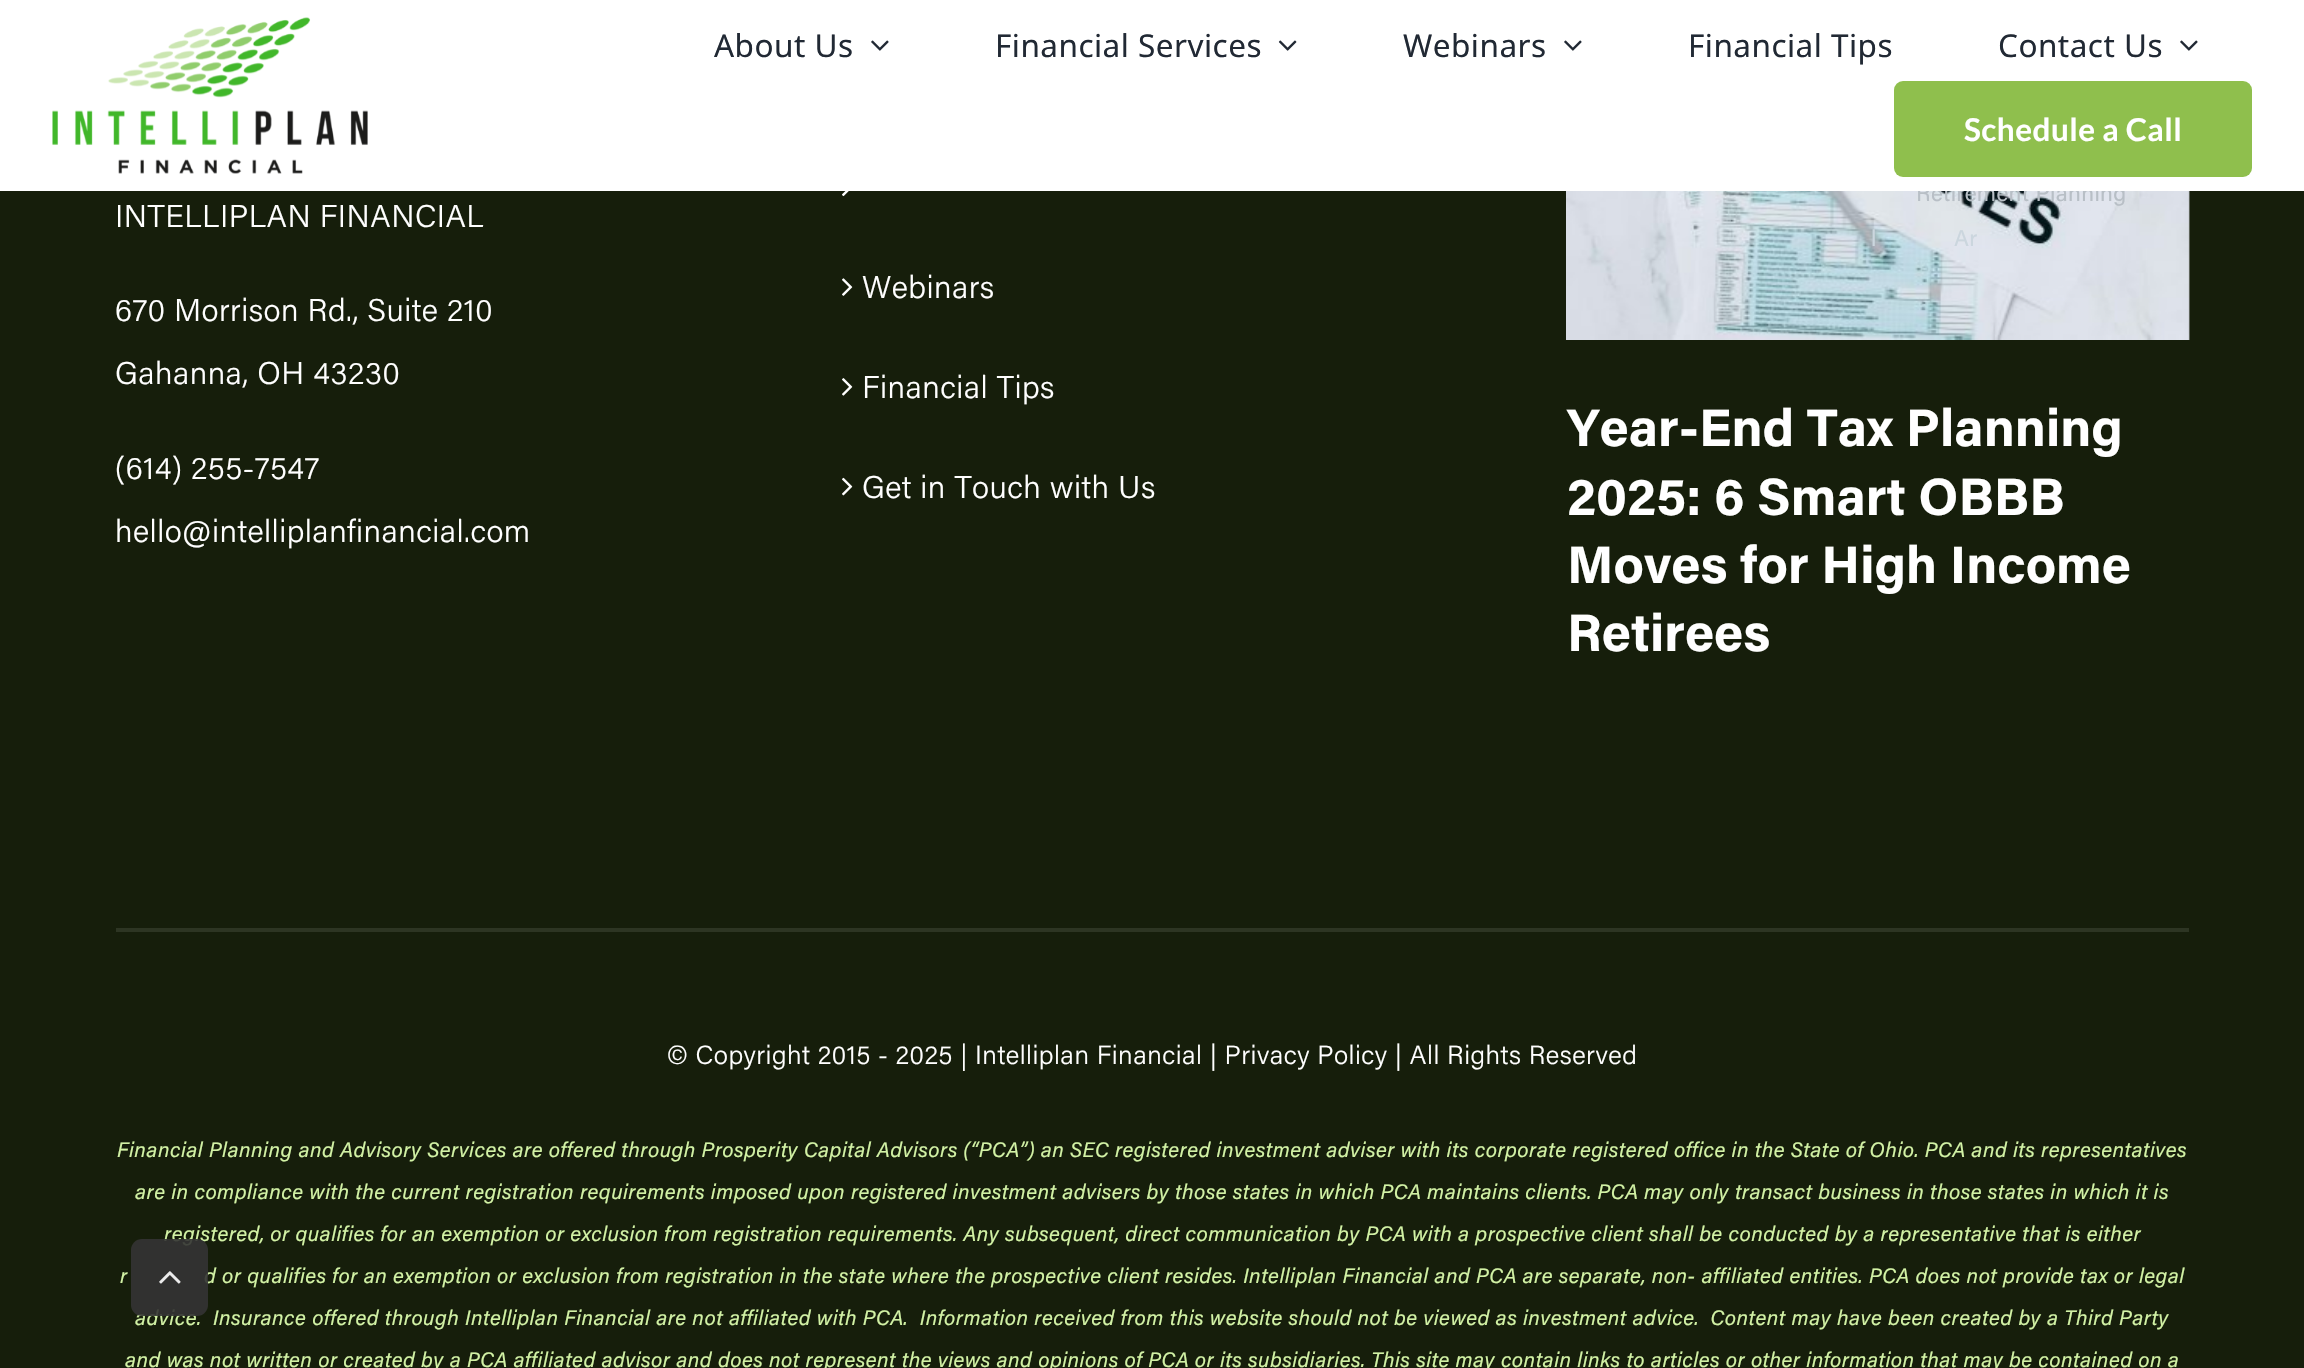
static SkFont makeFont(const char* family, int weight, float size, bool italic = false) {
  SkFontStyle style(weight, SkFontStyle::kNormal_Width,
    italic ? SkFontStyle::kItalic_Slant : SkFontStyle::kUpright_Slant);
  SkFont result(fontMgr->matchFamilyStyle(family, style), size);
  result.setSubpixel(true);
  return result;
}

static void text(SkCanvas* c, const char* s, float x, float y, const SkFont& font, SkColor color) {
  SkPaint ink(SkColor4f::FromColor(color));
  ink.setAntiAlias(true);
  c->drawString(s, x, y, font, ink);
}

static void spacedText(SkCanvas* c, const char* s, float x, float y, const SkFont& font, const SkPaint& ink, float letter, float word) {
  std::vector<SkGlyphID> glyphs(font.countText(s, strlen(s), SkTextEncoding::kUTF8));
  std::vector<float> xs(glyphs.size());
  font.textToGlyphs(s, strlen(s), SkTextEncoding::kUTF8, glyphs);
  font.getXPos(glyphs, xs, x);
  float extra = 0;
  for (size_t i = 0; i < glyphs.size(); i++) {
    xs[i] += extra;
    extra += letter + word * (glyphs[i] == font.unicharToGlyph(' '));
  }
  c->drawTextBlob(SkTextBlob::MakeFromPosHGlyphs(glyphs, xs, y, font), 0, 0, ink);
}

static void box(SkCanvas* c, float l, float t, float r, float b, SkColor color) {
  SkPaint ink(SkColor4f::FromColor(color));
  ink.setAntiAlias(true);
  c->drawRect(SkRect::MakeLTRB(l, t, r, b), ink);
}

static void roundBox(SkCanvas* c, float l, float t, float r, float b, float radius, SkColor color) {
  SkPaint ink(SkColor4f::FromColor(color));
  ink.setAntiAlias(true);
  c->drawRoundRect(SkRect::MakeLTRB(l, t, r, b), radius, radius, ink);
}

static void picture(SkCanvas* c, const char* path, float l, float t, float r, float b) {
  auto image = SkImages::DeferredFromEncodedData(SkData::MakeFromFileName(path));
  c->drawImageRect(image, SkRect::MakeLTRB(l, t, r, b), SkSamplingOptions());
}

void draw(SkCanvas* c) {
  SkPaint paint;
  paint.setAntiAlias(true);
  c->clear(0xff161e0b);
  picture(c, "img_08.png", 1566, 191, 2190, 340);
  SkFont face1 = makeFont("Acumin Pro", 400, 22.75f);
  paint.setColor(0xffb8bfc6);
  spacedText(c, "Retirement Planning", 1916, 201, face1, paint, 0.3f, 0);
  box(c, 0, 0, 2304, 191, 0xffffffff);
  picture(c, "img_01.png", 52, 17, 368, 174);
  SkFont face2 = makeFont("Noto Sans", 400, 31.5f);
  paint.setColor(0xff212934);
  spacedText(c, "About Us", 714, 57, face2, paint, 0.47f, 0);
  picture(c, "img_02.png", 871, 40, 889, 51);
  spacedText(c, "Financial Services", 995, 57, face2, paint, 0.47f, 0);
  picture(c, "img_03.png", 1278, 40, 1297, 51);
  spacedText(c, "Webinars", 1403, 57, face2, paint, 0.47f, 0);
  picture(c, "img_02.png", 1564, 40, 1582, 51);
  spacedText(c, "Financial Tips", 1688, 57, face2, paint, 0.47f, 0);
  spacedText(c, "Contact Us", 1998, 57, face2, paint, 0.47f, 0);
  picture(c, "img_02.png", 2180, 40, 2198, 51);
  roundBox(c, 1894, 81, 2252, 177, 9, 0xff8fbf4d);
  SkFont face3 = makeFont("Lato", 700, 31.5f);
  paint.setColor(0xffffffff);
  spacedText(c, "Schedule a Call", 1964, 141, face3, paint, 0.47f, 0);
  SkFont face4 = makeFont("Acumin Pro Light", 300, 31.5f);
  spacedText(c, "INTELLIPLAN FINANCIAL", 115, 227, face4, paint, 0.47f, 0);
  spacedText(c, "670 Morrison Rd., Suite 210", 115, 321, face4, paint, 0.47f, 0);
  spacedText(c, "Gahanna, OH 43230", 115, 384, face4, paint, 0.47f, 0);
  spacedText(c, "(614) 255-7547", 115, 479, face4, paint, 0.47f, 0);
  spacedText(c, "hello@intelliplanfinancial.com", 115, 542, face4, paint, 0.47f, 0);
  picture(c, "img_04.png", 842, 191, 849, 197);
  picture(c, "img_05.png", 842, 278, 853, 296);
  spacedText(c, "Webinars", 862, 298, face4, paint, 0.47f, 0);
  picture(c, "img_06.png", 842, 378, 853, 396);
  spacedText(c, "Financial Tips", 862, 398, face4, paint, 0.47f, 0);
  picture(c, "img_07.png", 842, 477, 853, 496);
  spacedText(c, "Get in Touch with Us", 862, 498, face4, paint, 0.47f, 0);
  paint.setColor(0xffcbd6de);
  spacedText(c, "l", 1871, 246, face1, paint, 0.3f, 0);
  spacedText(c, "Ar", 1954, 246, face1, paint, 0.3f, 0);
  SkFont face5 = makeFont("Acumin Pro", 700, 52.5f);
  text(c, "Year-End Tax Planning", 1567, 446, face5, 0xffffffff);
  text(c, "2025: 6 Smart OBBB", 1567, 515, face5, 0xffffffff);
  text(c, "Moves for High Income", 1567, 583, face5, 0xffffffff);
  text(c, "Retirees", 1567, 651, face5, 0xffffffff);
  box(c, 116, 928, 2189, 932, 0xff2d3523);
  SkFont face6 = makeFont("Acumin Pro Light", 300, 26.25f);
  paint.setColor(0xffffffff);
  spacedText(c, "© Copyright 2015 - 2025 | Intelliplan Financial | Privacy Policy | All Rights Reserved", 667, 1064, face6, paint, 0.47f, 0);
  SkFont face7 = makeFont("Acumin Pro", 400, 21, true);
  paint.setColor(0xffd2f2a5);
  spacedText(c, "Financial Planning and Advisory Services are offered through Prosperity Capital Advisors (“PCA”) an SEC registered investment adviser with its corporate registered office in the State of Ohio. PCA and its representatives", 117, 1157, face7, paint, 0.47f, 0);
  spacedText(c, "are in compliance with the current registration requirements imposed upon registered investment advisers by those states in which PCA maintains clients. PCA may only transact business in those states in which it is", 135, 1199, face7, paint, 0.47f, 0);
  spacedText(c, "registered, or qualifies for an exemption or exclusion from registration requirements. Any subsequent, direct communication by PCA with a prospective client shall be conducted by a representative that is either", 164, 1241, face7, paint, 0.47f, 0);
  spacedText(c, "r", 120, 1283, face7, paint, 0.47f, 0);
  spacedText(c, "d or qualifies for an exemption or exclusion from registration in the state where the prospective client resides. Intelliplan Financial and PCA are separate, non- affiliated entities. PCA does not provide tax or legal", 204, 1283, face7, paint, 0.47f, 0);
  spacedText(c, "advice.  Insurance offered through Intelliplan Financial are not affiliated with PCA.  Information received from this website should not be viewed as investment advice.  Content may have been created by a Third Party", 135, 1325, face7, paint, 0.47f, 0);
  spacedText(c, "and was not written or created by a PCA affiliated advisor and does not represent the views and opinions of PCA or its subsidiaries. This site may contain links to articles or other information that may be contained on a", 125, 1367, face7, paint, 0.47f, 0);
  roundBox(c, 131, 1239, 208, 1316, 11, 0xe6333333);
  picture(c, "img_09.png", 159, 1271, 181, 1284);
}
